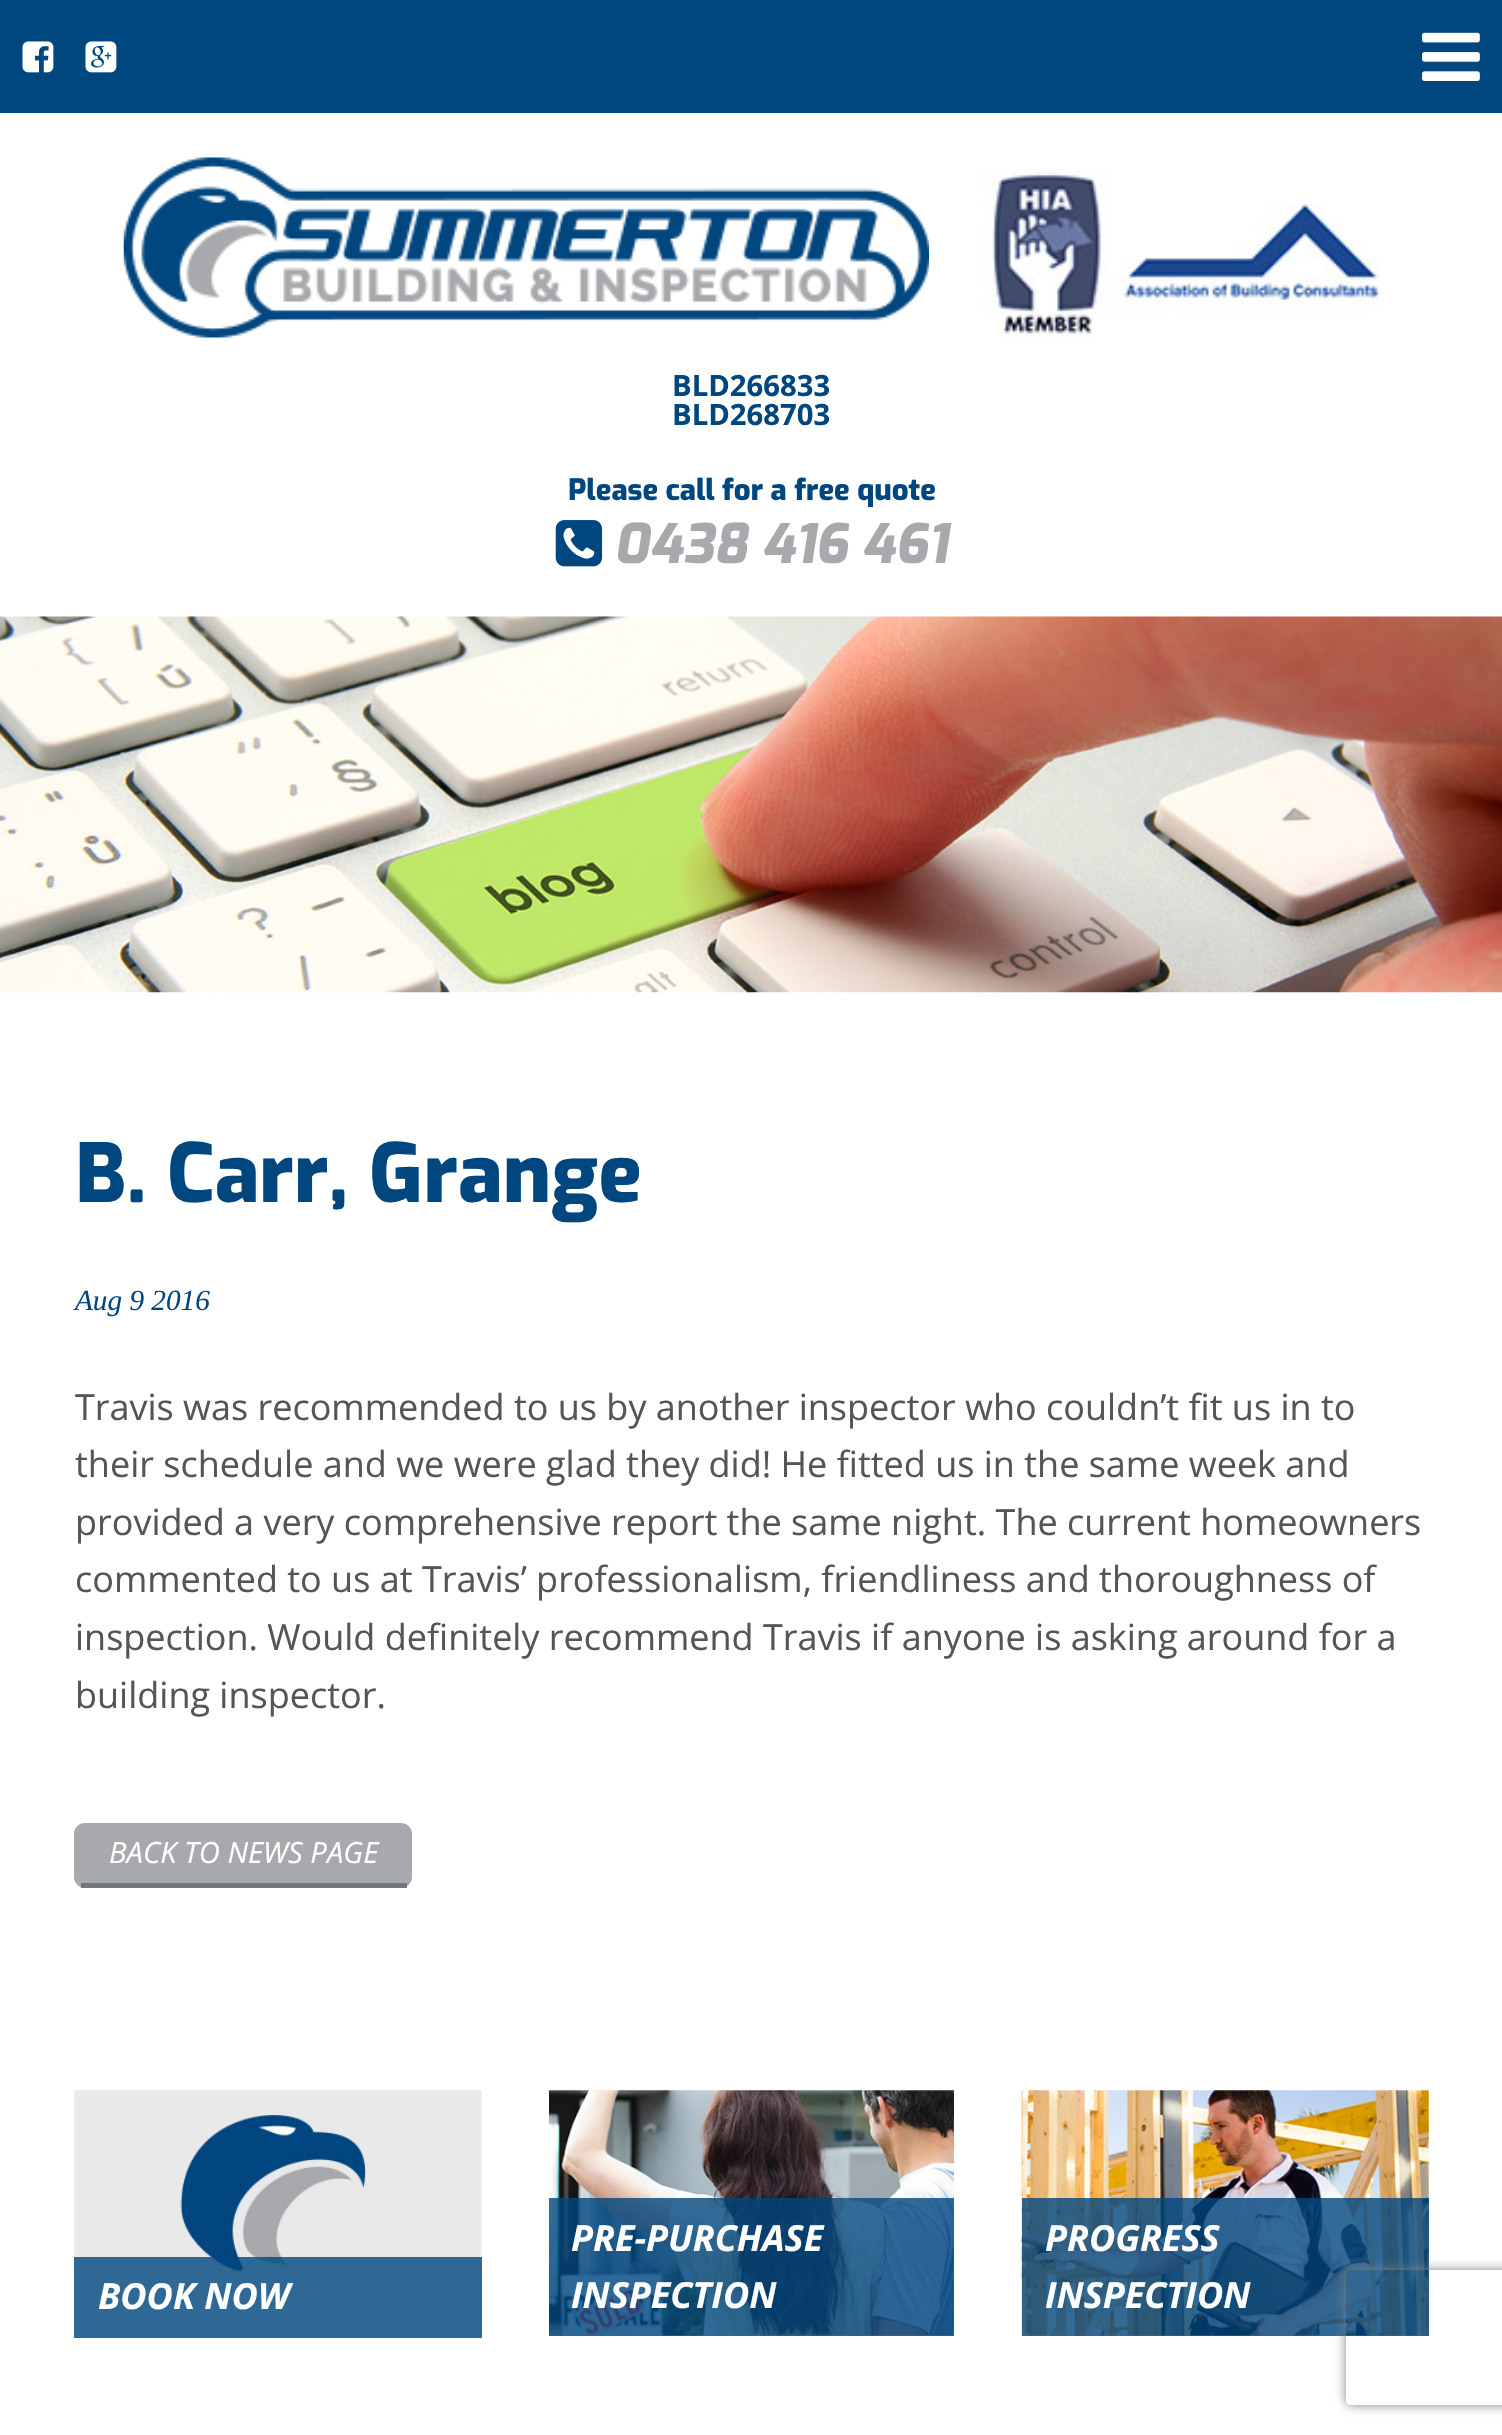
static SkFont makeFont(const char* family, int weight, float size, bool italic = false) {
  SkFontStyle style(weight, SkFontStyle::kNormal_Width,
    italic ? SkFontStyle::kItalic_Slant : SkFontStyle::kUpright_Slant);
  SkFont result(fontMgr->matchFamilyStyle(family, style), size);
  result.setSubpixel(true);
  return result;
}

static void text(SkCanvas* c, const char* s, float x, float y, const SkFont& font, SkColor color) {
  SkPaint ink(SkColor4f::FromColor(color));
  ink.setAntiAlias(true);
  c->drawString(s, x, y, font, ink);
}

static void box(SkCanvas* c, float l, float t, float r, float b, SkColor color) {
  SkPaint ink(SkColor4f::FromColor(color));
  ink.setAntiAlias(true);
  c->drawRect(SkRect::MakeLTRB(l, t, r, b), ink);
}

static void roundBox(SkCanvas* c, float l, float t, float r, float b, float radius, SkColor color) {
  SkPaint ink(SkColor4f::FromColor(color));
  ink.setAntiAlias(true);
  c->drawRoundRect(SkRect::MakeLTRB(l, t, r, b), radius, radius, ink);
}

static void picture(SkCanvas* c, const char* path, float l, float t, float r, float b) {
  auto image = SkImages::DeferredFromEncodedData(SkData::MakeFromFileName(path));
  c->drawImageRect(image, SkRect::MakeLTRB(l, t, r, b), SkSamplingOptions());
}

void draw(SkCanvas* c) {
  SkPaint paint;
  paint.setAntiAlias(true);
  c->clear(0xffffffff);
  box(c, 0, 0, 1502, 113, 0xff00467f);
  picture(c, "img_01.png", 1422, 32, 1480, 81);
  picture(c, "img_02.png", 22, 41, 54, 73);
  picture(c, "img_03.png", 85, 41, 117, 73);
  picture(c, "img_04.png", 123, 157, 930, 338);
  picture(c, "img_05.png", 929, 169, 1380, 338);
  SkFont face1 = makeFont("Open Sans", 700, 29.25f);
  text(c, "BLD266833", 672, 396, face1, 0xff00467f);
  text(c, "BLD268703", 672, 425, face1, 0xff00467f);
  SkFont face2 = makeFont("Exo", 800, 29.25f);
  text(c, "Please call for a free quote", 568, 500, face2, 0xff00467f);
  picture(c, "img_06.png", 555, 520, 603, 567);
  SkFont face3 = makeFont("Exo", 800, 54, true);
  text(c, "0438 416 461", 614, 563, face3, 0xffa7a9ac);
  picture(c, "img_07.png", 0, 616, 1502, 993);
  SkFont face4 = makeFont("Exo", 800, 81);
  text(c, "B. Carr, Grange", 75, 1202, face4, 0xff00467f);
  SkFont face5 = makeFont("Liberation Serif", 400, 29.25f, true);
  text(c, "Aug 9 2016", 75, 1310, face5, 0xff00467f);
  SkFont face6 = makeFont("Open Sans", 400, 36);
  text(c, "Travis was recommended to us by another inspector who couldn’t fit us in to", 75, 1420, face6, 0xff555555);
  text(c, "their schedule and we were glad they did! He fitted us in the same week and", 75, 1477, face6, 0xff555555);
  text(c, "provided a very comprehensive report the same night. The current homeowners", 75, 1535, face6, 0xff555555);
  text(c, "commented to us at Travis’ professionalism, friendliness and thoroughness of", 75, 1592, face6, 0xff555555);
  text(c, "inspection. Would definitely recommend Travis if anyone is asking around for a", 75, 1650, face6, 0xff555555);
  text(c, "building inspector.", 75, 1708, face6, 0xff555555);
  roundBox(c, 74, 1823, 412, 1888, 11, 0xffa7a9ac);
  box(c, 81, 1883, 407, 1888, 0xff73767a);
  SkFont face7 = makeFont("Open Sans", 400, 29.25f, true);
  text(c, "BACK TO NEWS PAGE", 109, 1863, face7, 0xffffffff);
  picture(c, "img_08.png", 74, 2090, 482, 2338);
  box(c, 74, 2257, 482, 2338, 0xcc00467f);
  SkFont face8 = makeFont("Open Sans", 700, 36, true);
  text(c, "BOOK NOW", 98, 2309, face8, 0xffffffff);
  picture(c, "img_09.png", 549, 2090, 954, 2336);
  box(c, 549, 2198, 954, 2336, 0xcc00467f);
  text(c, "PRE-PURCHASE", 571, 2251, face8, 0xffffffff);
  text(c, "INSPECTION", 571, 2308, face8, 0xffffffff);
  picture(c, "img_10.png", 1021, 2090, 1429, 2336);
  box(c, 1022, 2198, 1429, 2336, 0xcc00467f);
  text(c, "PROGRESS", 1045, 2251, face8, 0xffffffff);
  text(c, "INSPECTION", 1045, 2308, face8, 0xffffffff);
  c->save();
  c->clipPath(SkPathBuilder(SkPathFillType::kEvenOdd).moveTo(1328, 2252).lineTo(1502, 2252).lineTo(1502, 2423).lineTo(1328, 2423).close().moveTo(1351, 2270).lineTo(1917, 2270).cubicTo(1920, 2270, 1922, 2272, 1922, 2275).lineTo(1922, 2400).cubicTo(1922, 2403, 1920, 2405, 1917, 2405).lineTo(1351, 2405).cubicTo(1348, 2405, 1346, 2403, 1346, 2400).lineTo(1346, 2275).cubicTo(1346, 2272, 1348, 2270, 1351, 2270).close().detach(), true);
  paint.setColor(0xff808080);
  paint.setMaskFilter(SkMaskFilter::MakeBlur(kNormal_SkBlurStyle, 5.5f));
  c->drawRoundRect(SkRect::MakeLTRB(1346, 2270, 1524, 2405), 5, 5, paint);
  paint.setMaskFilter(nullptr);
  c->restore();
}
